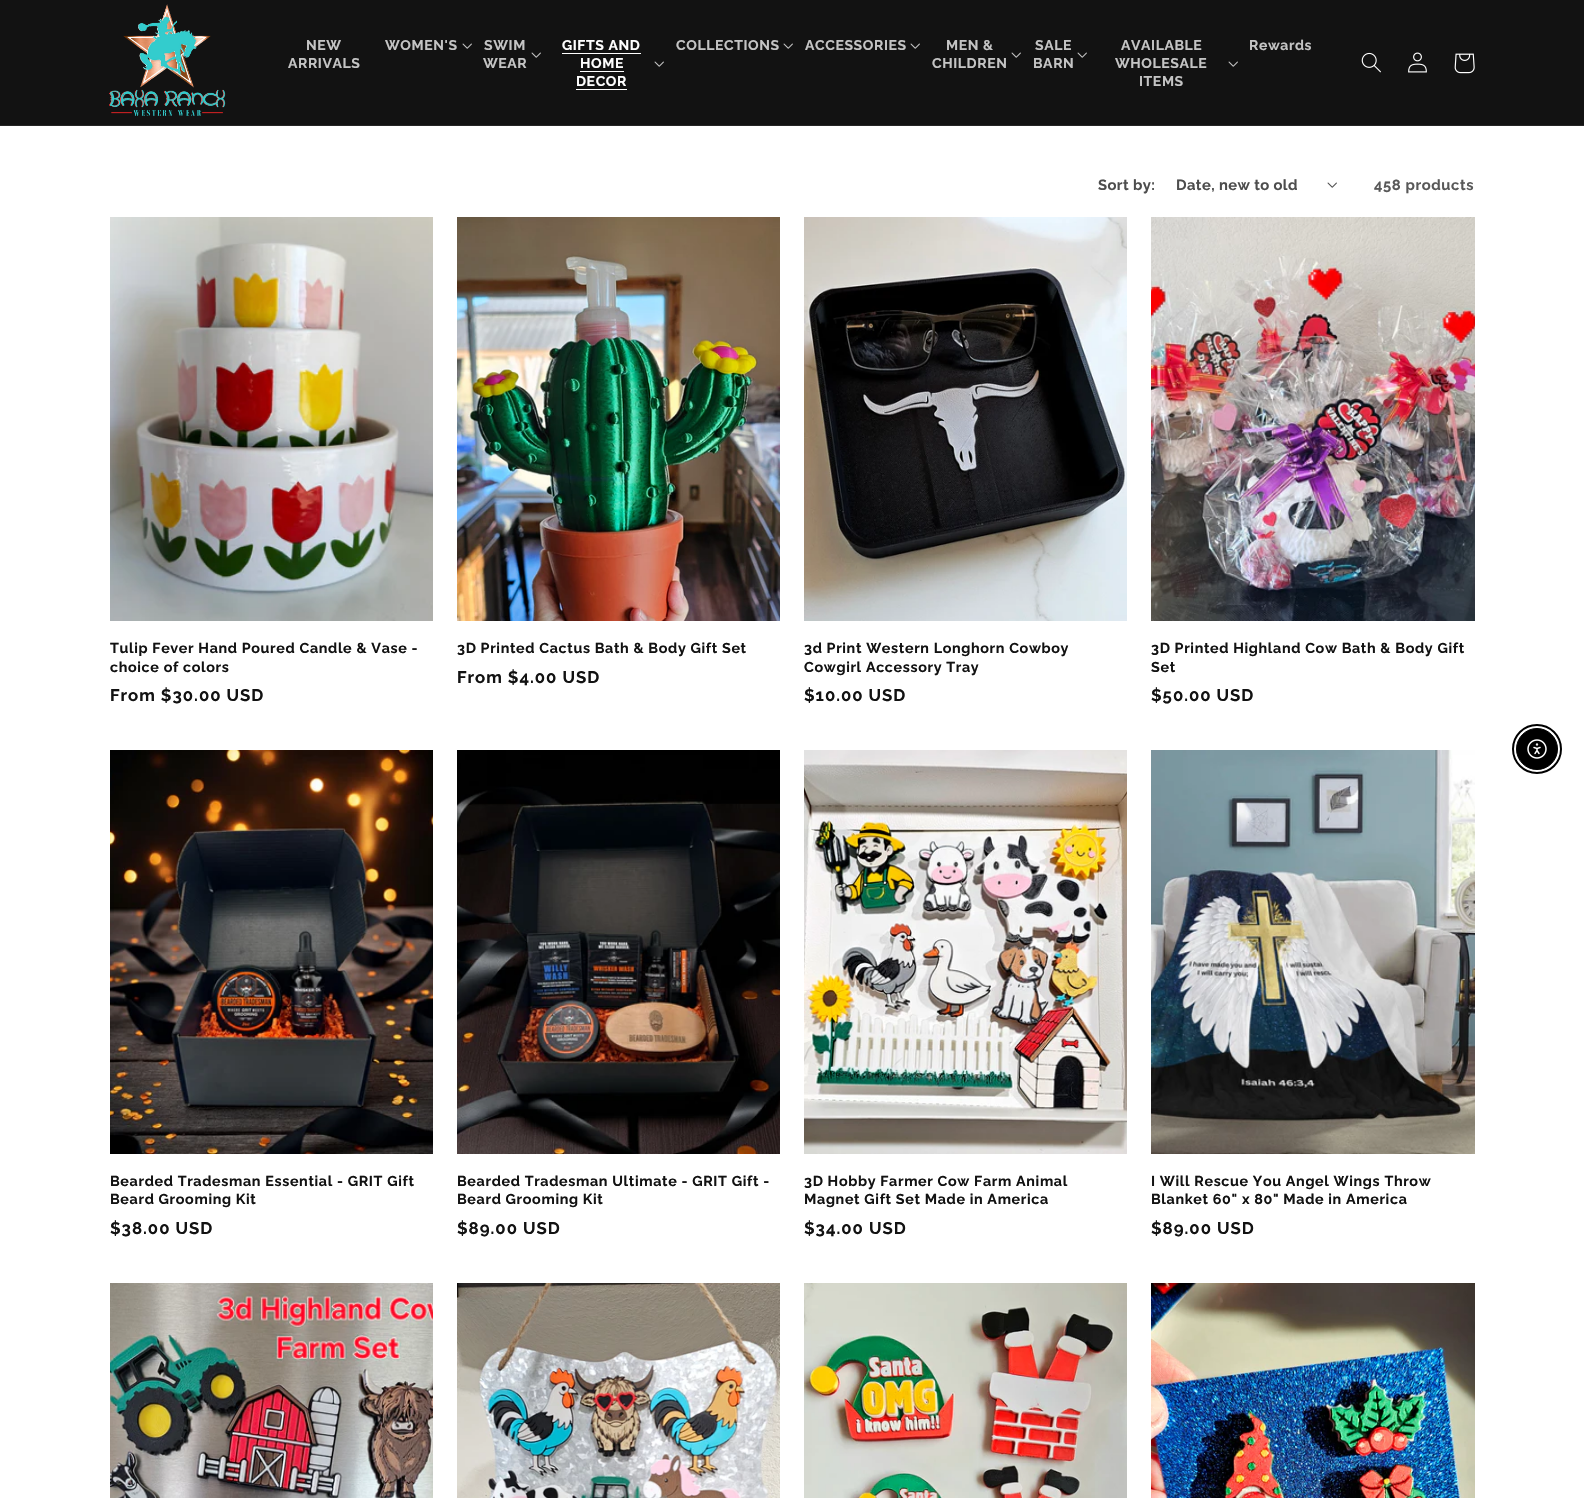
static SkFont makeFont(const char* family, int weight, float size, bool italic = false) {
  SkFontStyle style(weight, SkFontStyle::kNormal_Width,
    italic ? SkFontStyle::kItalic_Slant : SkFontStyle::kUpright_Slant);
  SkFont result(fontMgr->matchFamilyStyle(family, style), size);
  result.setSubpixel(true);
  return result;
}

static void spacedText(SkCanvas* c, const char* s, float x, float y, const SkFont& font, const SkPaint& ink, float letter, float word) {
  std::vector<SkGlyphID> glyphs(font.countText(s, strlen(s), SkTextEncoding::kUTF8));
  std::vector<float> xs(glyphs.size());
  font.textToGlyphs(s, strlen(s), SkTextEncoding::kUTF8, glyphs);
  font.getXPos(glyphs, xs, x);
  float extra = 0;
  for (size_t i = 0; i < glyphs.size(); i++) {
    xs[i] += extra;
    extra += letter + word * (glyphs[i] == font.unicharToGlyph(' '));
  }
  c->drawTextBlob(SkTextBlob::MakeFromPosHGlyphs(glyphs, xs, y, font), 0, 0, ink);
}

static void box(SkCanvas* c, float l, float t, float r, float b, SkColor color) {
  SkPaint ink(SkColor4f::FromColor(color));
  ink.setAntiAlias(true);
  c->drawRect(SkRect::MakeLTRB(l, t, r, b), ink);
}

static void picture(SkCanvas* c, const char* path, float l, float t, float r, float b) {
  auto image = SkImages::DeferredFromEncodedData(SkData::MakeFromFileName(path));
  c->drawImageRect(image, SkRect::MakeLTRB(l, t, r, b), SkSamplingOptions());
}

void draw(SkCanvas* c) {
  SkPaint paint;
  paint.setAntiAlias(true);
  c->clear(0xffffffff);
  box(c, 0, 0, 1584, 125, 0xff121212);
  box(c, 0, 125, 1584, 126, 0xff252525);
  picture(c, "img_01.png", 109, 4, 226, 116);
  SkFont face1 = makeFont("Raleway", 700, 14);
  paint.setColor(0xffc4c4c4);
  spacedText(c, "NEW", 306, 50, face1, paint, 0.6f, 0);
  spacedText(c, "ARRIVALS", 288, 68, face1, paint, 0.6f, 0);
  spacedText(c, "WOMEN'S", 385, 50, face1, paint, 0.6f, 0);
  picture(c, "img_02.png", 462, 43, 472, 49);
  spacedText(c, "SWIM", 484, 50, face1, paint, 0.6f, 0);
  spacedText(c, "WEAR", 483, 68, face1, paint, 0.6f, 0);
  picture(c, "img_02.png", 531, 52, 541, 58);
  paint.setColor(0xffffffff);
  spacedText(c, "GIFTS AND", 562, 50, face1, paint, 0.6f, 0);
  box(c, 562, 53, 641, 54, 0xffffffff);
  spacedText(c, "HOME", 580, 68, face1, paint, 0.6f, 0);
  box(c, 580, 71, 624, 72, 0xffffffff);
  spacedText(c, "DECOR", 576, 86, face1, paint, 0.6f, 0);
  box(c, 576, 89, 627, 90, 0xffffffff);
  picture(c, "img_02.png", 654, 61, 664, 67);
  paint.setColor(0xffc4c4c4);
  spacedText(c, "COLLECTIONS", 676, 50, face1, paint, 0.6f, 0);
  picture(c, "img_02.png", 783, 43, 793, 49);
  spacedText(c, "ACCESSORIES", 805, 50, face1, paint, 0.6f, 0);
  picture(c, "img_02.png", 910, 43, 920, 49);
  spacedText(c, "MEN &", 946, 50, face1, paint, 0.6f, 0);
  spacedText(c, "CHILDREN", 932, 68, face1, paint, 0.6f, 0);
  picture(c, "img_02.png", 1011, 52, 1021, 58);
  spacedText(c, "SALE", 1035, 50, face1, paint, 0.6f, 0);
  spacedText(c, "BARN", 1033, 68, face1, paint, 0.6f, 0);
  picture(c, "img_02.png", 1077, 52, 1087, 58);
  spacedText(c, "AVAILABLE", 1121, 50, face1, paint, 0.6f, 0);
  spacedText(c, "WHOLESALE", 1115, 68, face1, paint, 0.6f, 0);
  spacedText(c, "ITEMS", 1139, 86, face1, paint, 0.6f, 0);
  picture(c, "img_02.png", 1228, 61, 1238, 67);
  spacedText(c, "Rewards", 1249, 50, face1, paint, 0.6f, 0);
  picture(c, "img_03.png", 1361, 52, 1381, 73);
  picture(c, "img_04.png", 1408, 52, 1427, 73);
  picture(c, "img_05.png", 1454, 53, 1475, 74);
  SkFont face2 = makeFont("Raleway", 700, 14.75f);
  paint.setColor(0xff4d4d4d);
  spacedText(c, "Sort by:", 1098, 190, face2, paint, 0.4f, 0);
  spacedText(c, "Date, new to old", 1176, 190, face2, paint, 0.4f, 0);
  picture(c, "img_06.png", 1327, 182, 1337, 188);
  paint.setColor(0xff595959);
  spacedText(c, "458 products", 1374, 190, face2, paint, 0.6f, 0);
  picture(c, "img_07.png", 110, 217, 433, 621);
  SkFont face3 = makeFont("Raleway", 700, 14.3f);
  paint.setColor(0xff121212);
  spacedText(c, "Tulip Fever Hand Poured Candle & Vase -", 110, 653, face3, paint, 0.65f, 0);
  spacedText(c, "choice of colors", 110, 672, face3, paint, 0.65f, 0);
  SkFont face4 = makeFont("Raleway", 700, 16.75f);
  spacedText(c, "From $30.00 USD", 110, 701, face4, paint, 1, 0);
  picture(c, "img_08.png", 457, 217, 780, 621);
  spacedText(c, "3D Printed Cactus Bath & Body Gift Set", 457, 653, face3, paint, 0.65f, 0);
  spacedText(c, "From $4.00 USD", 457, 683, face4, paint, 1, 0);
  picture(c, "img_09.png", 804, 217, 1127, 621);
  spacedText(c, "3d Print Western Longhorn Cowboy", 804, 653, face3, paint, 0.65f, 0);
  spacedText(c, "Cowgirl Accessory Tray", 804, 672, face3, paint, 0.65f, 0);
  spacedText(c, "$10.00 USD", 804, 701, face4, paint, 1, 0);
  picture(c, "img_10.png", 1151, 217, 1475, 621);
  spacedText(c, "3D Printed Highland Cow Bath & Body Gift", 1151, 653, face3, paint, 0.65f, 0);
  spacedText(c, "Set", 1151, 672, face3, paint, 0.65f, 0);
  spacedText(c, "$50.00 USD", 1151, 701, face4, paint, 1, 0);
  picture(c, "img_11.png", 110, 750, 433, 1154);
  spacedText(c, "Bearded Tradesman Essential - GRIT Gift", 110, 1186, face3, paint, 0.65f, 0);
  spacedText(c, "Beard Grooming Kit", 110, 1204, face3, paint, 0.65f, 0);
  spacedText(c, "$38.00 USD", 110, 1234, face4, paint, 1, 0);
  picture(c, "img_12.png", 457, 750, 780, 1154);
  spacedText(c, "Bearded Tradesman Ultimate - GRIT Gift -", 457, 1186, face3, paint, 0.65f, 0);
  spacedText(c, "Beard Grooming Kit", 457, 1204, face3, paint, 0.65f, 0);
  spacedText(c, "$89.00 USD", 457, 1234, face4, paint, 1, 0);
  picture(c, "img_13.png", 804, 750, 1127, 1154);
  spacedText(c, "3D Hobby Farmer Cow Farm Animal", 804, 1186, face3, paint, 0.65f, 0);
  spacedText(c, "Magnet Gift Set Made in America", 804, 1204, face3, paint, 0.65f, 0);
  spacedText(c, "$34.00 USD", 804, 1234, face4, paint, 1, 0);
  picture(c, "img_14.png", 1151, 750, 1475, 1154);
  spacedText(c, "I Will Rescue You Angel Wings Throw", 1151, 1186, face3, paint, 0.65f, 0);
  spacedText(c, "Blanket 60\" x 80\" Made in America", 1151, 1204, face3, paint, 0.65f, 0);
  spacedText(c, "$89.00 USD", 1151, 1234, face4, paint, 1, 0);
  picture(c, "img_15.png", 110, 1283, 433, 1498);
  picture(c, "img_16.png", 457, 1283, 780, 1498);
  picture(c, "img_17.png", 804, 1283, 1127, 1498);
  picture(c, "img_18.png", 1151, 1283, 1475, 1498);
  paint.setStyle(SkPaint::kStroke_Style);
  paint.setStrokeWidth(2);
  paint.setColor(0xff000000);
  c->drawCircle(1537, 749, 24, paint);
  paint.setStyle(SkPaint::kFill_Style);
  c->drawCircle(1537, 749, 20.5f, paint);
  paint.setStyle(SkPaint::kStroke_Style);
  paint.setStrokeWidth(1);
  c->drawCircle(1537, 749, 20.5f, paint);
  picture(c, "img_19.png", 1527, 739, 1547, 759);
}
